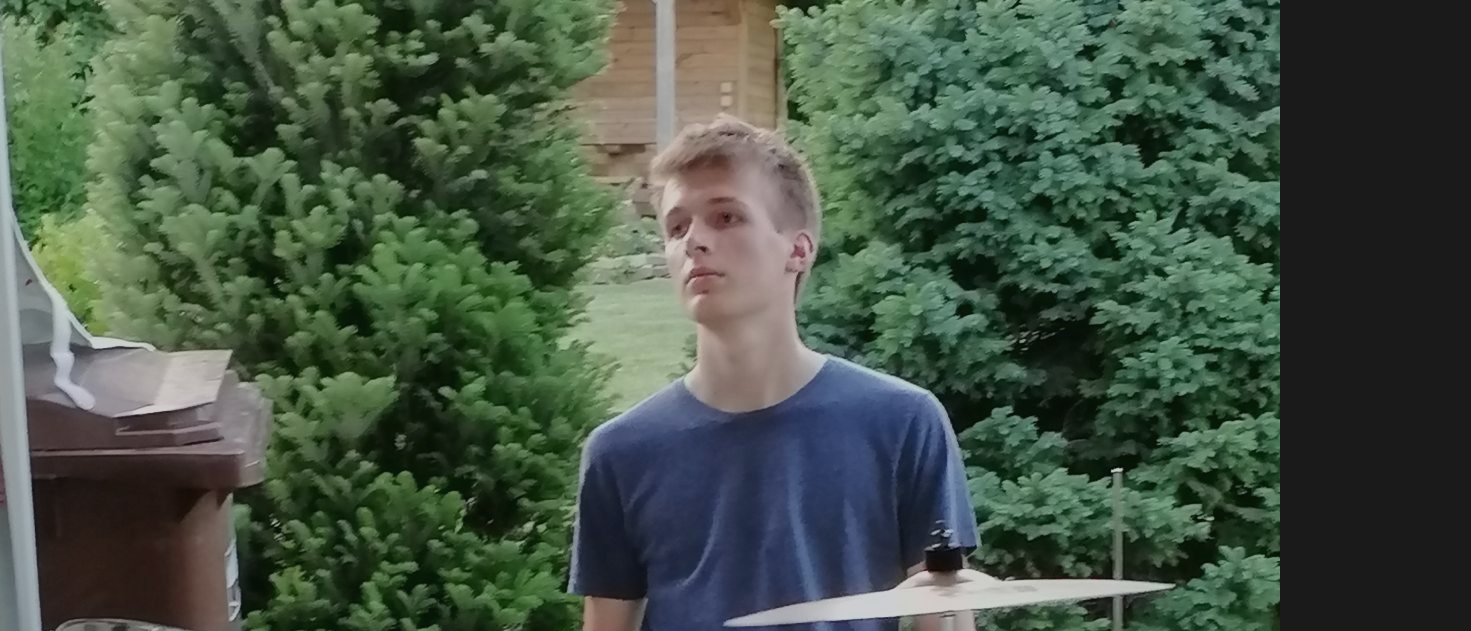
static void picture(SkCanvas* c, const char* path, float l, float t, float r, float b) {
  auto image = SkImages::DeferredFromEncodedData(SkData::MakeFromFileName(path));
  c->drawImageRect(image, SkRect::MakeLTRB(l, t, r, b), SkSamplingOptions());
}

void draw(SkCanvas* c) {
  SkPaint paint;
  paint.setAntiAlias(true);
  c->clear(0xff1a1a1a);
  picture(c, "img_01.png", 0, 0, 1280, 631);
}
